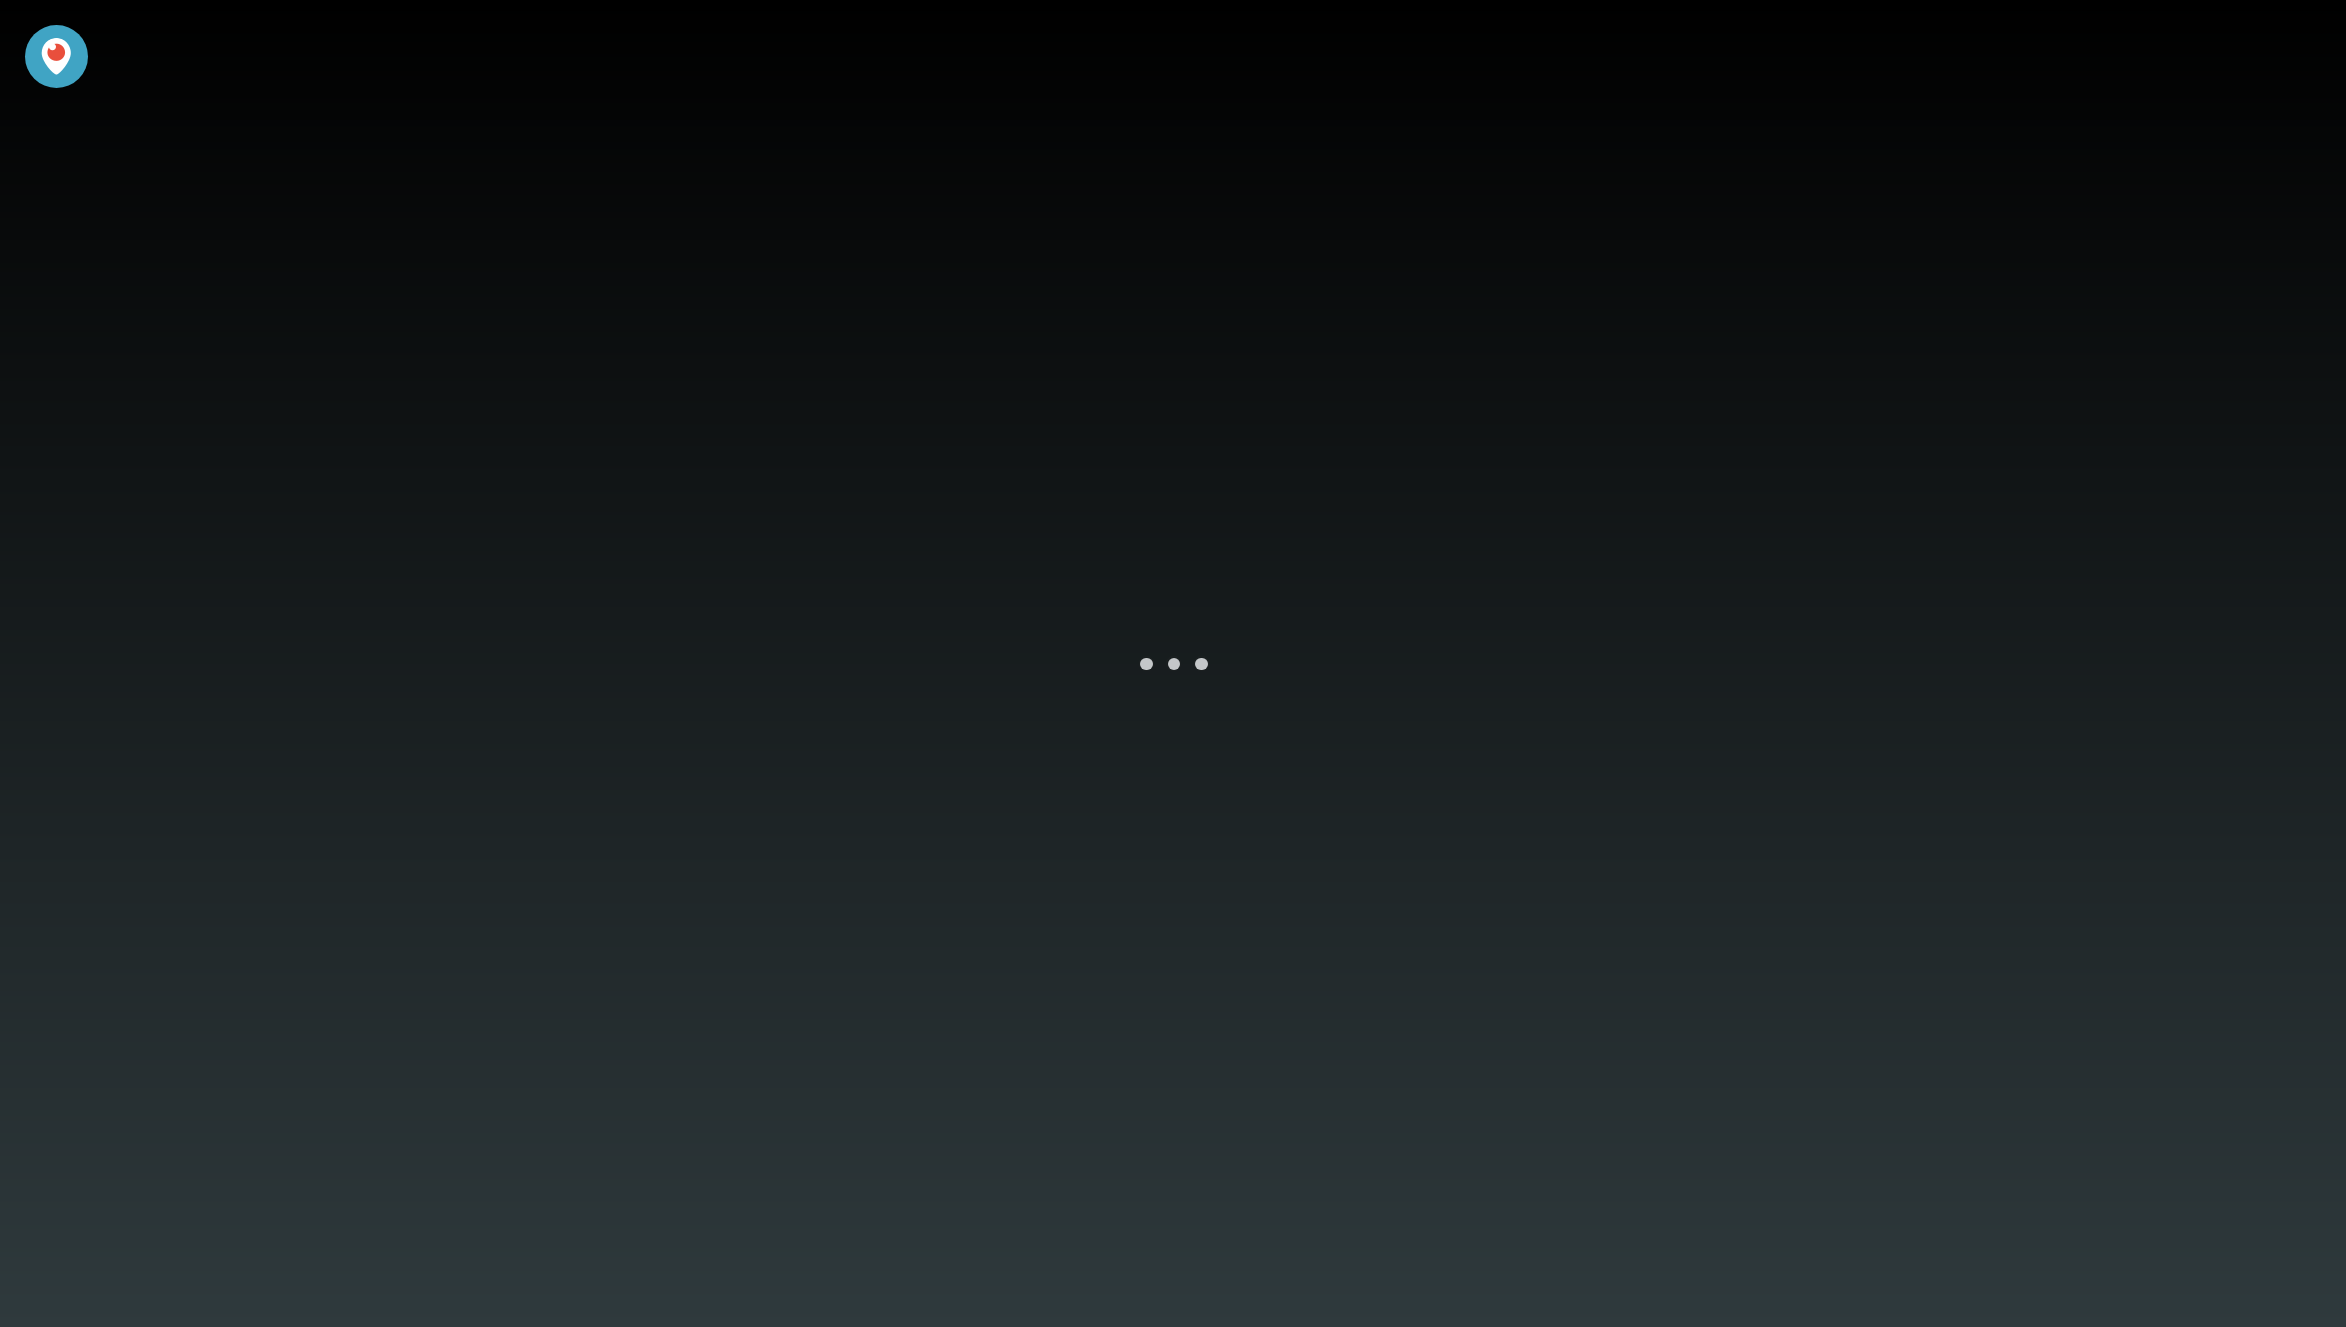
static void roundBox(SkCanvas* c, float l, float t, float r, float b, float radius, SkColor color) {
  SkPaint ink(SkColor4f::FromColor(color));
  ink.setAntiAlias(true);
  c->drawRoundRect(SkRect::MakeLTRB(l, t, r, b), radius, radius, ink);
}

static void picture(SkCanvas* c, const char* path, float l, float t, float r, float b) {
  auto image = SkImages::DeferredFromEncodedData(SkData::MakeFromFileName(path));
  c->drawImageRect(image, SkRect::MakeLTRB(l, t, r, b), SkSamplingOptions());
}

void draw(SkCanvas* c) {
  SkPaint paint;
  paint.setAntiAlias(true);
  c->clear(0xffffffff);
  {
    const SkColor colors[] = {0xff000000, 0xff2f3a3d};
    const float stops[] = {0, 1};
    const SkPoint ends[] = {{1173, 0}, {1173, 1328}};
    paint.setShader(SkGradientShader::MakeLinear(ends, colors, stops, 2, SkTileMode::kClamp));
    paint.setAlpha(255);
  }
  c->drawRect(SkRect::MakeLTRB(0, 0, 2346, 1327), paint);
  paint.setShader(nullptr);
  paint.setColor(0xff40a4c4);
  c->drawCircle(56.5f, 56.5f, 31.5f, paint);
  picture(c, "img_01.png", 41, 38, 71, 75);
  paint.setStyle(SkPaint::kStroke_Style);
  paint.setStrokeWidth(1);
  paint.setColor(0xff1b1f20);
  c->drawCircle(1146.5f, 663.5f, 7, paint);
  roundBox(c, 1140, 658, 1153, 670, 6, 0xffc4c7c9);
  c->drawCircle(1173.5f, 663.5f, 7, paint);
  paint.setStyle(SkPaint::kFill_Style);
  paint.setColor(0xffc4c7c9);
  c->drawCircle(1174, 664, 6, paint);
  paint.setStyle(SkPaint::kStroke_Style);
  paint.setColor(0xff1b1f20);
  c->drawCircle(1201.5f, 663.5f, 7, paint);
  roundBox(c, 1195, 658, 1208, 670, 6, 0xffc4c7c9);
}
